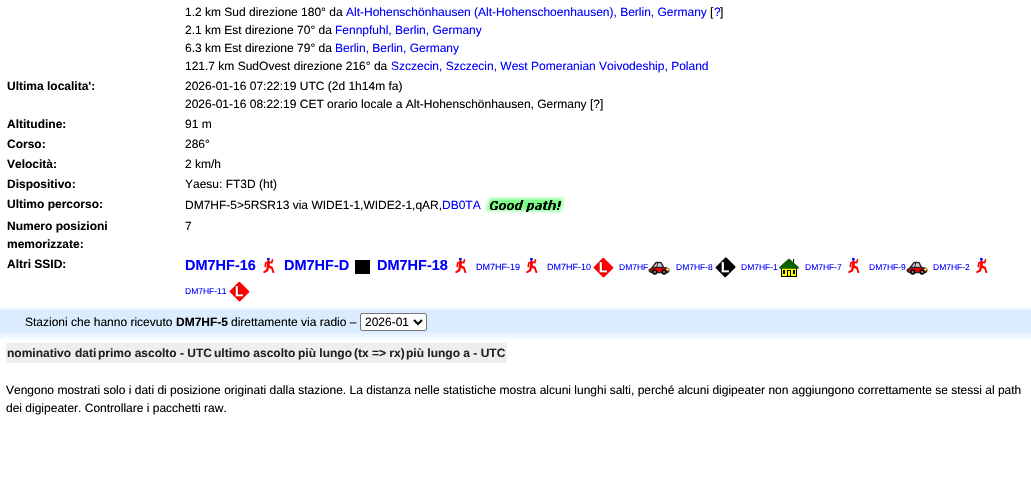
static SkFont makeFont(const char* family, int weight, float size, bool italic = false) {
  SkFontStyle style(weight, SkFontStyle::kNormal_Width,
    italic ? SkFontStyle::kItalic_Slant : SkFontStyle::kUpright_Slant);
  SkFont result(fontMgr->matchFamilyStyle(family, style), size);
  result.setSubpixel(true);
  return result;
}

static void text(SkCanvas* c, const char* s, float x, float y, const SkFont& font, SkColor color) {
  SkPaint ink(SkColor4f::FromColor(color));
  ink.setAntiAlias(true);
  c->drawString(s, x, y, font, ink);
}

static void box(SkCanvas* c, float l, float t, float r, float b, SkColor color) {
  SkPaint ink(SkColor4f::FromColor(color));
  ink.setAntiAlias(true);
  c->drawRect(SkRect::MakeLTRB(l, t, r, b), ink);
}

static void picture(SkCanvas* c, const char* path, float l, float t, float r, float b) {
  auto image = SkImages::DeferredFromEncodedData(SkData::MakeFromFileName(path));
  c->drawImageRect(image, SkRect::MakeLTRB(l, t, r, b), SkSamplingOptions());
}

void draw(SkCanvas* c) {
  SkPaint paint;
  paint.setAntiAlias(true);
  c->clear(0xffffffff);
  SkFont face1 = makeFont("Liberation Sans", 400, 12);
  text(c, "1.2 km Sud direzione 180° da", 185, 16, face1, 0xff000000);
  text(c, "Alt-Hohenschönhausen (Alt-Hohenschoenhausen), Berlin, Germany", 346, 16, face1, 0xff0000ff);
  text(c, "[", 710, 16, face1, 0xff000000);
  text(c, "?", 714, 16, face1, 0xff0000ff);
  text(c, "]", 720, 16, face1, 0xff000000);
  text(c, "2.1 km Est direzione 70° da", 185, 34, face1, 0xff000000);
  text(c, "Fennpfuhl, Berlin, Germany", 335, 34, face1, 0xff0000ff);
  text(c, "6.3 km Est direzione 79° da", 185, 52, face1, 0xff000000);
  text(c, "Berlin, Berlin, Germany", 335, 52, face1, 0xff0000ff);
  text(c, "121.7 km SudOvest direzione 216° da", 185, 70, face1, 0xff000000);
  text(c, "Szczecin, Szczecin, West Pomeranian Voivodeship, Poland", 391, 70, face1, 0xff0000ff);
  SkFont face2 = makeFont("Liberation Sans", 700, 12);
  text(c, "Ultima localita':", 7, 90, face2, 0xff000000);
  text(c, "2026-01-16 07:22:19 UTC (2d 1h14m fa)", 185, 90, face1, 0xff000000);
  text(c, "2026-01-16 08:22:19 CET orario locale a Alt-Hohenschönhausen, Germany [?]", 185, 108, face1, 0xff000000);
  text(c, "Altitudine:", 7, 128, face2, 0xff000000);
  text(c, "91 m", 185, 128, face1, 0xff000000);
  text(c, "Corso:", 7, 148, face2, 0xff000000);
  text(c, "286°", 185, 148, face1, 0xff000000);
  text(c, "Velocità:", 7, 168, face2, 0xff000000);
  text(c, "2 km/h", 185, 168, face1, 0xff000000);
  text(c, "Dispositivo:", 7, 188, face2, 0xff000000);
  text(c, "Yaesu: FT3D (ht)", 185, 188, face1, 0xff000000);
  text(c, "Ultimo percorso:", 7, 208, face2, 0xff000000);
  text(c, "DM7HF-5>5RSR13 via WIDE1-1,WIDE2-1,qAR,", 185, 209, face1, 0xff000000);
  text(c, "DB0TA", 442, 209, face1, 0xff0000ff);
  picture(c, "img_01.png", 484, 195, 565, 214);
  text(c, "Numero posizioni", 7, 230, face2, 0xff000000);
  text(c, "memorizzate:", 7, 248, face2, 0xff000000);
  text(c, "7", 185, 230, face1, 0xff000000);
  text(c, "Altri SSID:", 7, 268, face2, 0xff000000);
  SkFont face3 = makeFont("Liberation Sans", 700, 14.5f);
  text(c, "DM7HF-16", 185, 270, face3, 0xff0000ff);
  picture(c, "img_02.png", 263, 257, 275, 273);
  text(c, "DM7HF-D", 284, 270, face3, 0xff0000ff);
  box(c, 355, 260, 370, 274, 0xff000000);
  text(c, "DM7HF-18", 377, 270, face3, 0xff0000ff);
  picture(c, "img_02.png", 455, 257, 467, 273);
  SkFont face4 = makeFont("Liberation Sans", 400, 9);
  text(c, "DM7HF-19", 476, 270, face4, 0xff0000ff);
  picture(c, "img_02.png", 526, 257, 538, 273);
  text(c, "DM7HF-10", 547, 270, face4, 0xff0000ff);
  picture(c, "img_03.png", 593, 257, 614, 278);
  SkFont face5 = makeFont("Liberation Sans", 400, 8.5f);
  text(c, "DM7HF", 619, 270, face5, 0xff0000ff);
  picture(c, "img_04.png", 648, 261, 670, 275);
  text(c, "DM7HF-8", 676, 270, face5, 0xff0000ff);
  picture(c, "img_05.png", 715, 257, 736, 278);
  text(c, "DM7HF-1", 741, 270, face5, 0xff0000ff);
  picture(c, "img_06.png", 779, 258, 799, 277);
  text(c, "DM7HF-7", 805, 270, face5, 0xff0000ff);
  picture(c, "img_02.png", 848, 257, 860, 273);
  text(c, "DM7HF-9", 869, 270, face5, 0xff0000ff);
  picture(c, "img_07.png", 906, 261, 928, 275);
  text(c, "DM7HF-2", 933, 270, face5, 0xff0000ff);
  picture(c, "img_02.png", 976, 257, 988, 273);
  text(c, "DM7HF-11", 185, 294, face5, 0xff0000ff);
  picture(c, "img_03.png", 229, 281, 250, 302);
  picture(c, "img_08.png", 0, 307, 1031, 311);
  box(c, 0, 311, 1031, 331, 0xffdcecff);
  text(c, "Stazioni che hanno ricevuto", 25, 326, face1, 0xff000000);
  text(c, "DM7HF-5", 176, 326, face2, 0xff000000);
  text(c, "direttamente via radio –", 231, 326, face1, 0xff000000);
  paint.setColor(0xffffffff);
  c->drawRoundRect(SkRect::MakeLTRB(360.5f, 313.5f, 426.5f, 330.5f), 1.5f, 1.5f, paint);
  paint.setStyle(SkPaint::kStroke_Style);
  paint.setStrokeWidth(1);
  paint.setColor(0xff767676);
  c->drawRoundRect(SkRect::MakeLTRB(360.5f, 313.5f, 426.5f, 330.5f), 1.5f, 1.5f, paint);
  paint.setStrokeWidth(2);
  paint.setColor(0xff000000);
  c->drawPath(SkPathBuilder().moveTo(414, 320).lineTo(418, 324).lineTo(422, 320).detach(), paint);
  text(c, "2026-01", 365, 326, face1, 0xff000000);
  picture(c, "img_09.png", 0, 331, 1031, 340);
  box(c, 6, 343, 507, 363, 0xffeeeeee);
  text(c, "nominativo", 7, 357, face2, 0xff222222);
  text(c, "dati", 75, 357, face2, 0xff222222);
  text(c, "primo ascolto - UTC", 98, 357, face2, 0xff222222);
  text(c, "ultimo ascolto", 214, 357, face2, 0xff222222);
  text(c, "più lungo", 298, 357, face2, 0xff222222);
  text(c, "(tx => rx)", 354, 357, face2, 0xff222222);
  text(c, "più lungo a - UTC", 406, 357, face2, 0xff222222);
  text(c, "Vengono mostrati solo i dati di posizione originati dalla stazione. La distanza nelle statistiche mostra alcuni lunghi salti, perché alcuni digipeater non aggiungono correttamente se stessi al path", 6, 394, face1, 0xff000000);
  text(c, "dei digipeater. Controllare i pacchetti raw.", 6, 412, face1, 0xff000000);
}
